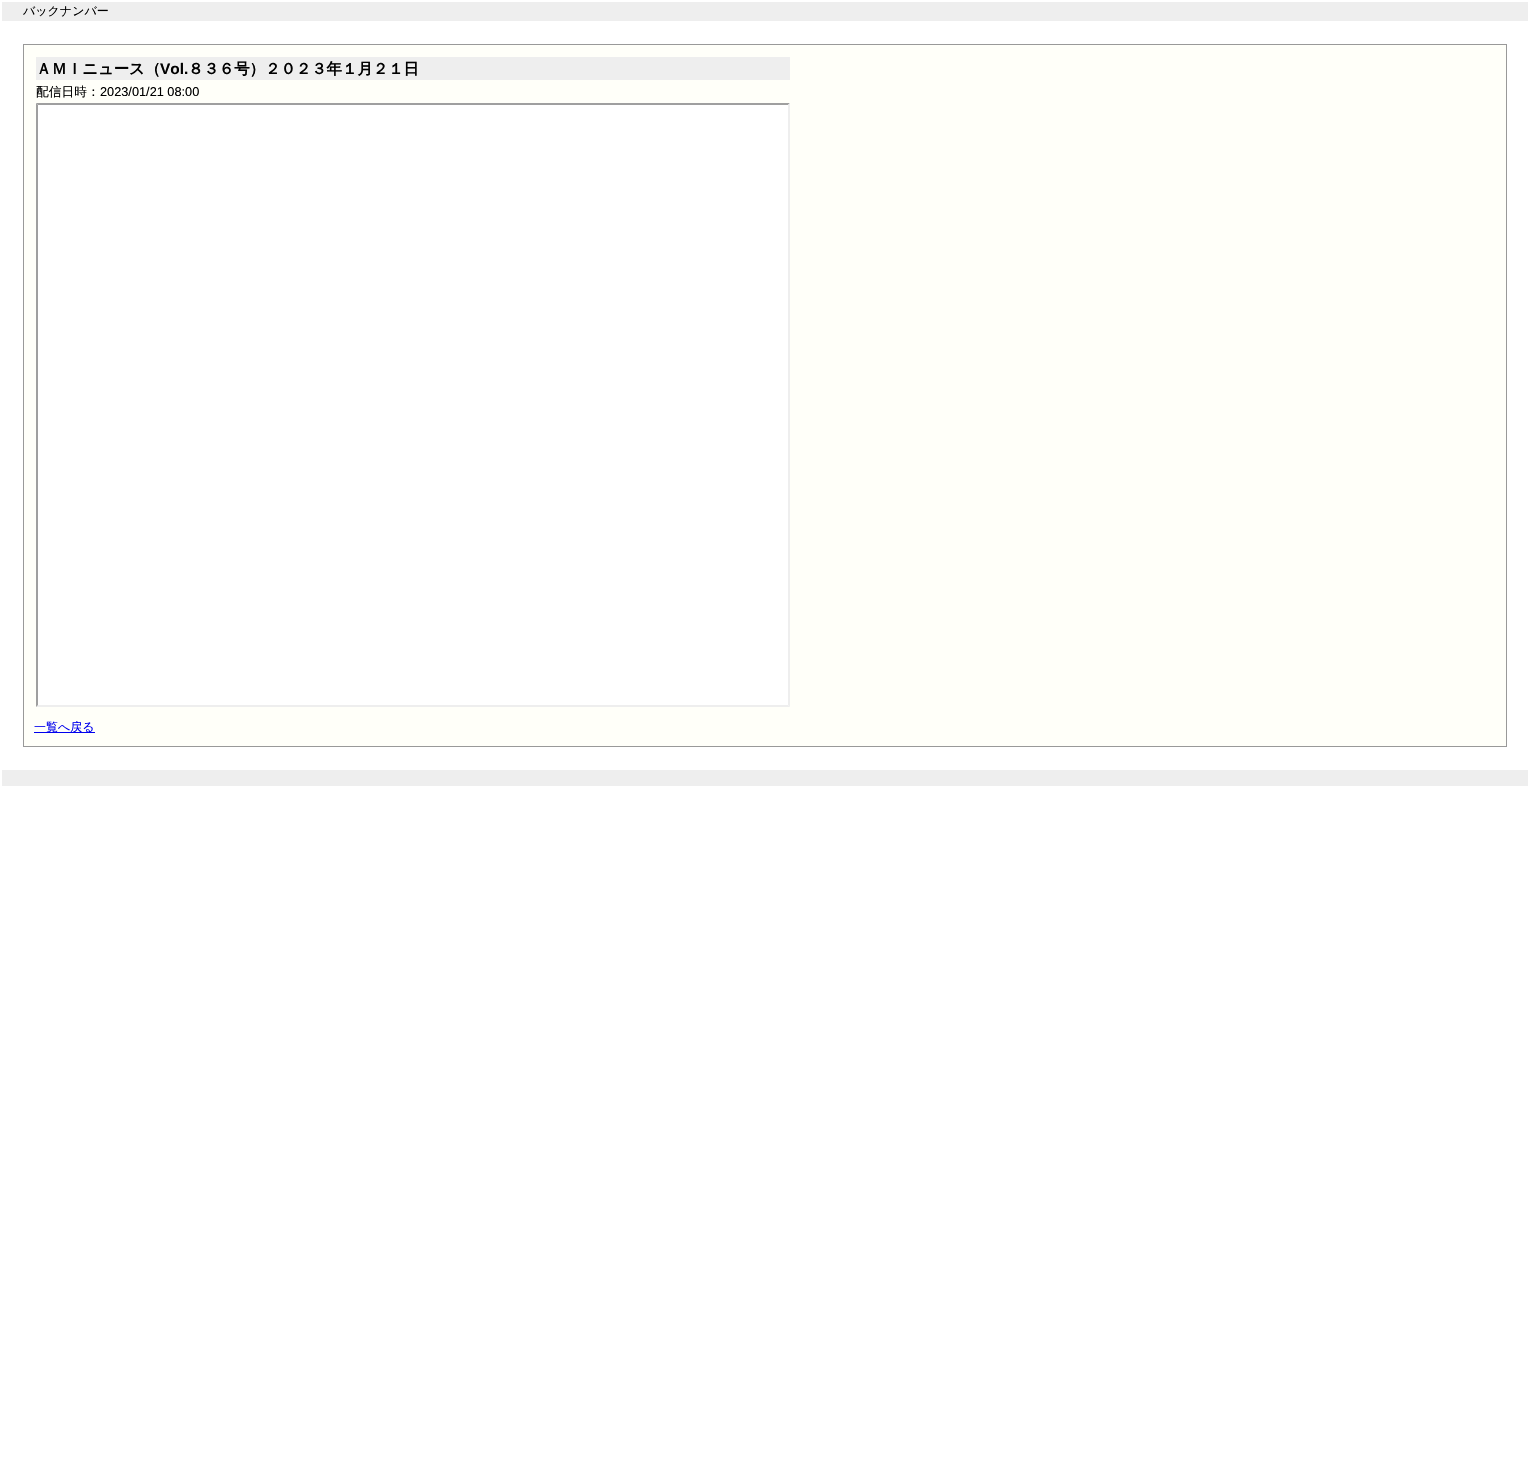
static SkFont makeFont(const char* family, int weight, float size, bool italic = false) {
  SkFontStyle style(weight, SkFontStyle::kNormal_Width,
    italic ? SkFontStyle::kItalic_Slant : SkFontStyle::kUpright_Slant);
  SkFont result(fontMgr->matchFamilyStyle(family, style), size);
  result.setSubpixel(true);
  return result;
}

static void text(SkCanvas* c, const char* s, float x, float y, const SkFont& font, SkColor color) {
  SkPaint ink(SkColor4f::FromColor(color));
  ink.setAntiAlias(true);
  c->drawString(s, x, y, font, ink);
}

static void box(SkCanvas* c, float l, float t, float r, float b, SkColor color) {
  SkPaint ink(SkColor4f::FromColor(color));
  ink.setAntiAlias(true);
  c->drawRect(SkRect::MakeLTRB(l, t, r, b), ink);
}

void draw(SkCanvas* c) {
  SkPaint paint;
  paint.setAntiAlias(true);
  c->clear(0xffffffff);
  box(c, 2, 2, 1528, 21, 0xffeeeeee);
  SkFont face1 = makeFont("WenQuanYi Zen Hei", 500, 12);
  text(c, "バックナンバー", 23, 15, face1, 0xff000000);
  paint.setColor(0xfffffff9);
  c->drawRect(SkRect::MakeLTRB(23.5f, 44.5f, 1506.5f, 746.5f), paint);
  paint.setStyle(SkPaint::kStroke_Style);
  paint.setStrokeWidth(1);
  paint.setColor(0xff999999);
  c->drawRect(SkRect::MakeLTRB(23.5f, 44.5f, 1506.5f, 746.5f), paint);
  box(c, 36, 57, 790, 80, 0xffeeeeee);
  SkFont face2 = makeFont("WenQuanYi Zen Hei", 700, 15.4f);
  text(c, "ＡＭＩニュース（", 36, 74, face2, 0xff000000);
  SkFont face3 = makeFont("Liberation Sans", 700, 15.4f);
  text(c, "Vol.", 160, 74, face3, 0xff000000);
  text(c, "８３６号）２０２３年１月２１日", 188, 74, face2, 0xff000000);
  SkFont face4 = makeFont("WenQuanYi Zen Hei", 500, 12.75f);
  text(c, "配信日時：", 36, 96, face4, 0xff000000);
  SkFont face5 = makeFont("Liberation Sans", 400, 12.75f);
  text(c, "2023/01/21 08:00", 100, 96, face5, 0xff000000);
  box(c, 36, 103, 790, 707, 0xffffffff);
  paint.setStyle(SkPaint::kFill_Style);
  paint.setColor(0xff9f9f9f);
  c->drawPath(SkPathBuilder().moveTo(36, 103).lineTo(790, 103).lineTo(788, 105).lineTo(38, 105).close().detach(), paint);
  paint.setColor(0xffeeeeee);
  c->drawPath(SkPathBuilder().moveTo(790, 103).lineTo(790, 707).lineTo(788, 705).lineTo(788, 105).close().detach(), paint);
  c->drawPath(SkPathBuilder().moveTo(790, 707).lineTo(36, 707).lineTo(38, 705).lineTo(788, 705).close().detach(), paint);
  paint.setColor(0xff9f9f9f);
  c->drawPath(SkPathBuilder().moveTo(36, 707).lineTo(36, 103).lineTo(38, 105).lineTo(38, 705).close().detach(), paint);
  box(c, 34, 732, 95, 733, 0xff0000ee);
  text(c, "一覧へ戻る", 34, 731, face1, 0xff0000ee);
  box(c, 2, 770, 1528, 786, 0xffeeeeee);
}
